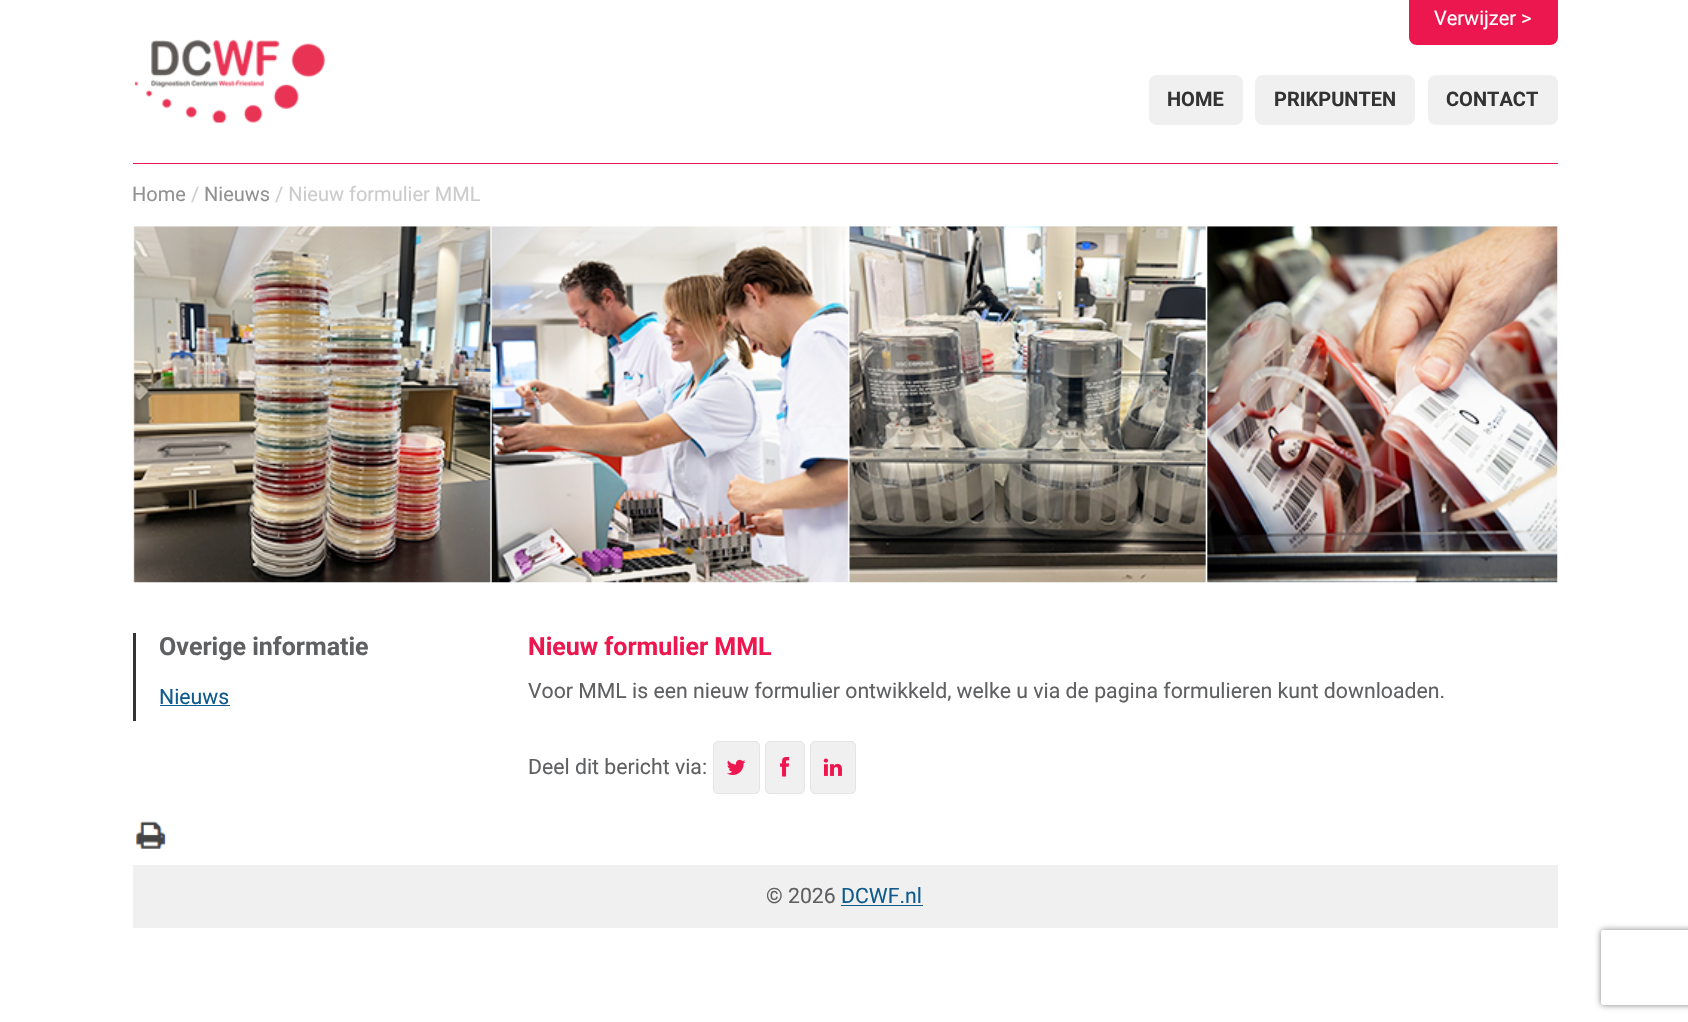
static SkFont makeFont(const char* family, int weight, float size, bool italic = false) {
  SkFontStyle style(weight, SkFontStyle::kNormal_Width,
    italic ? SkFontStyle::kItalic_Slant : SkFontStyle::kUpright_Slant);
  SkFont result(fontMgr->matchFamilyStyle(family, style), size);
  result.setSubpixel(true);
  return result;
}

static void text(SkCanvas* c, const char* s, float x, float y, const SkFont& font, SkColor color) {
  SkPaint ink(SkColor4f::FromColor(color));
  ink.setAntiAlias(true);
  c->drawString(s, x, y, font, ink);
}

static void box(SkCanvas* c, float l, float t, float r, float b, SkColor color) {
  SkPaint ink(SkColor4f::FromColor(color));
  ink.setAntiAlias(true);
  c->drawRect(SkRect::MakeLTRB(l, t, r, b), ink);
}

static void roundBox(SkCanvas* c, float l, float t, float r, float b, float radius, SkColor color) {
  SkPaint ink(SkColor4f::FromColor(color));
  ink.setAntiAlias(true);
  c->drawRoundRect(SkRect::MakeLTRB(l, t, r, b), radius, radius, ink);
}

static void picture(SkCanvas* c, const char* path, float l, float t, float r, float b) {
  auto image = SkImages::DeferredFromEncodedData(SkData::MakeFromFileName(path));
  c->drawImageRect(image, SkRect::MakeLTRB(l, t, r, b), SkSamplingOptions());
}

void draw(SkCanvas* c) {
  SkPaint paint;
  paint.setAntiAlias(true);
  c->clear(0xffffffff);
  box(c, 133, 163, 1558, 164, 0xffed174f);
  paint.setColor(0xffed174f);
  c->drawPath(SkPathBuilder().moveTo(1409, 0).lineTo(1558, 0).lineTo(1558, 37).cubicTo(1558, 41.5f, 1554.5f, 45, 1550, 45).lineTo(1417, 45).cubicTo(1412.5f, 45, 1409, 41.5f, 1409, 37).close().detach(), paint);
  SkFont face1 = makeFont("Roboto", 400, 20);
  text(c, "Verwijzer >", 1434, 25, face1, 0xffffffff);
  picture(c, "img_01.png", 134, 39, 326, 123);
  roundBox(c, 1149, 75, 1243, 125, 8, 0xfff0f0f0);
  SkFont face2 = makeFont("Roboto", 700, 20);
  text(c, "HOME", 1167, 106, face2, 0xff333333);
  roundBox(c, 1255, 75, 1415, 125, 8, 0xfff0f0f0);
  text(c, "PRIKPUNTEN", 1274, 106, face2, 0xff333333);
  roundBox(c, 1428, 75, 1558, 125, 8, 0xfff0f0f0);
  text(c, "CONTACT", 1446, 106, face2, 0xff333333);
  text(c, "Home", 132, 201, face1, 0xff929292);
  text(c, "/", 191, 201, face1, 0xffcccccc);
  text(c, "Nieuws", 204, 201, face1, 0xff929292);
  text(c, "/ Nieuw formulier MML", 275, 201, face1, 0xffcccccc);
  picture(c, "img_02.png", 133, 226, 1558, 583);
  box(c, 133, 633, 136, 721, 0xff333333);
  SkFont face3 = makeFont("Roboto", 700, 25);
  text(c, "Overige informatie", 159, 655, face3, 0xff5f6062);
  SkFont face4 = makeFont("Roboto", 400, 21.25f);
  text(c, "Nieuws", 159, 704, face4, 0xff0f5b8e);
  box(c, 160, 705, 230, 706, 0xff0f5b8e);
  text(c, "Nieuw formulier MML", 528, 655, face3, 0xffed174f);
  text(c, "Voor MML is een nieuw formulier ontwikkeld, welke u via de pagina formulieren kunt downloaden.", 528, 698, face4, 0xff5f6062);
  text(c, "Deel dit bericht via:", 528, 774, face4, 0xff5f6062);
  paint.setColor(0xfff0f0f0);
  c->drawRoundRect(SkRect::MakeLTRB(713.5f, 741.5f, 759.5f, 793.5f), 4.5f, 4.5f, paint);
  paint.setStyle(SkPaint::kStroke_Style);
  paint.setStrokeWidth(1);
  paint.setColor(0xffe5e4e4);
  c->drawRoundRect(SkRect::MakeLTRB(713.5f, 741.5f, 759.5f, 793.5f), 4.5f, 4.5f, paint);
  picture(c, "img_03.png", 727, 759, 746, 775);
  paint.setStyle(SkPaint::kFill_Style);
  paint.setColor(0xfff0f0f0);
  c->drawRoundRect(SkRect::MakeLTRB(765.5f, 741.5f, 804.5f, 793.5f), 4.5f, 4.5f, paint);
  paint.setStyle(SkPaint::kStroke_Style);
  paint.setColor(0xffe5e4e4);
  c->drawRoundRect(SkRect::MakeLTRB(765.5f, 741.5f, 804.5f, 793.5f), 4.5f, 4.5f, paint);
  picture(c, "img_04.png", 780, 757, 790, 777);
  paint.setStyle(SkPaint::kFill_Style);
  paint.setColor(0xfff0f0f0);
  c->drawRoundRect(SkRect::MakeLTRB(810.5f, 741.5f, 855.5f, 793.5f), 4.5f, 4.5f, paint);
  paint.setStyle(SkPaint::kStroke_Style);
  paint.setColor(0xffe5e4e4);
  c->drawRoundRect(SkRect::MakeLTRB(810.5f, 741.5f, 855.5f, 793.5f), 4.5f, 4.5f, paint);
  picture(c, "img_05.png", 823, 758, 842, 776);
  picture(c, "img_06.png", 135, 821, 167, 849);
  box(c, 133, 865, 1558, 928, 0xfff0f0f0);
  text(c, "© 2026", 766, 903, face4, 0xff5f6062);
  text(c, "DCWF.nl", 841, 903, face4, 0xff0f5b8e);
  box(c, 841, 905, 923, 906, 0xff0f5b8e);
  c->save();
  c->clipPath(SkPathBuilder(SkPathFillType::kEvenOdd).moveTo(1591, 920).lineTo(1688, 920).lineTo(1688, 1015).lineTo(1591, 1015).close().moveTo(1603.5f, 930).lineTo(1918.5f, 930).cubicTo(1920, 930, 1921, 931, 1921, 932.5f).lineTo(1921, 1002.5f).cubicTo(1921, 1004, 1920, 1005, 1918.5f, 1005).lineTo(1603.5f, 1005).cubicTo(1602, 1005, 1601, 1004, 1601, 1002.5f).lineTo(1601, 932.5f).cubicTo(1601, 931, 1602, 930, 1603.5f, 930).close().detach(), true);
  paint.setStyle(SkPaint::kFill_Style);
  paint.setColor(0xff808080);
  paint.setMaskFilter(SkMaskFilter::MakeBlur(kNormal_SkBlurStyle, 3));
  c->drawRoundRect(SkRect::MakeLTRB(1601, 930, 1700, 1005), 2.5f, 2.5f, paint);
  paint.setMaskFilter(nullptr);
  c->restore();
}
